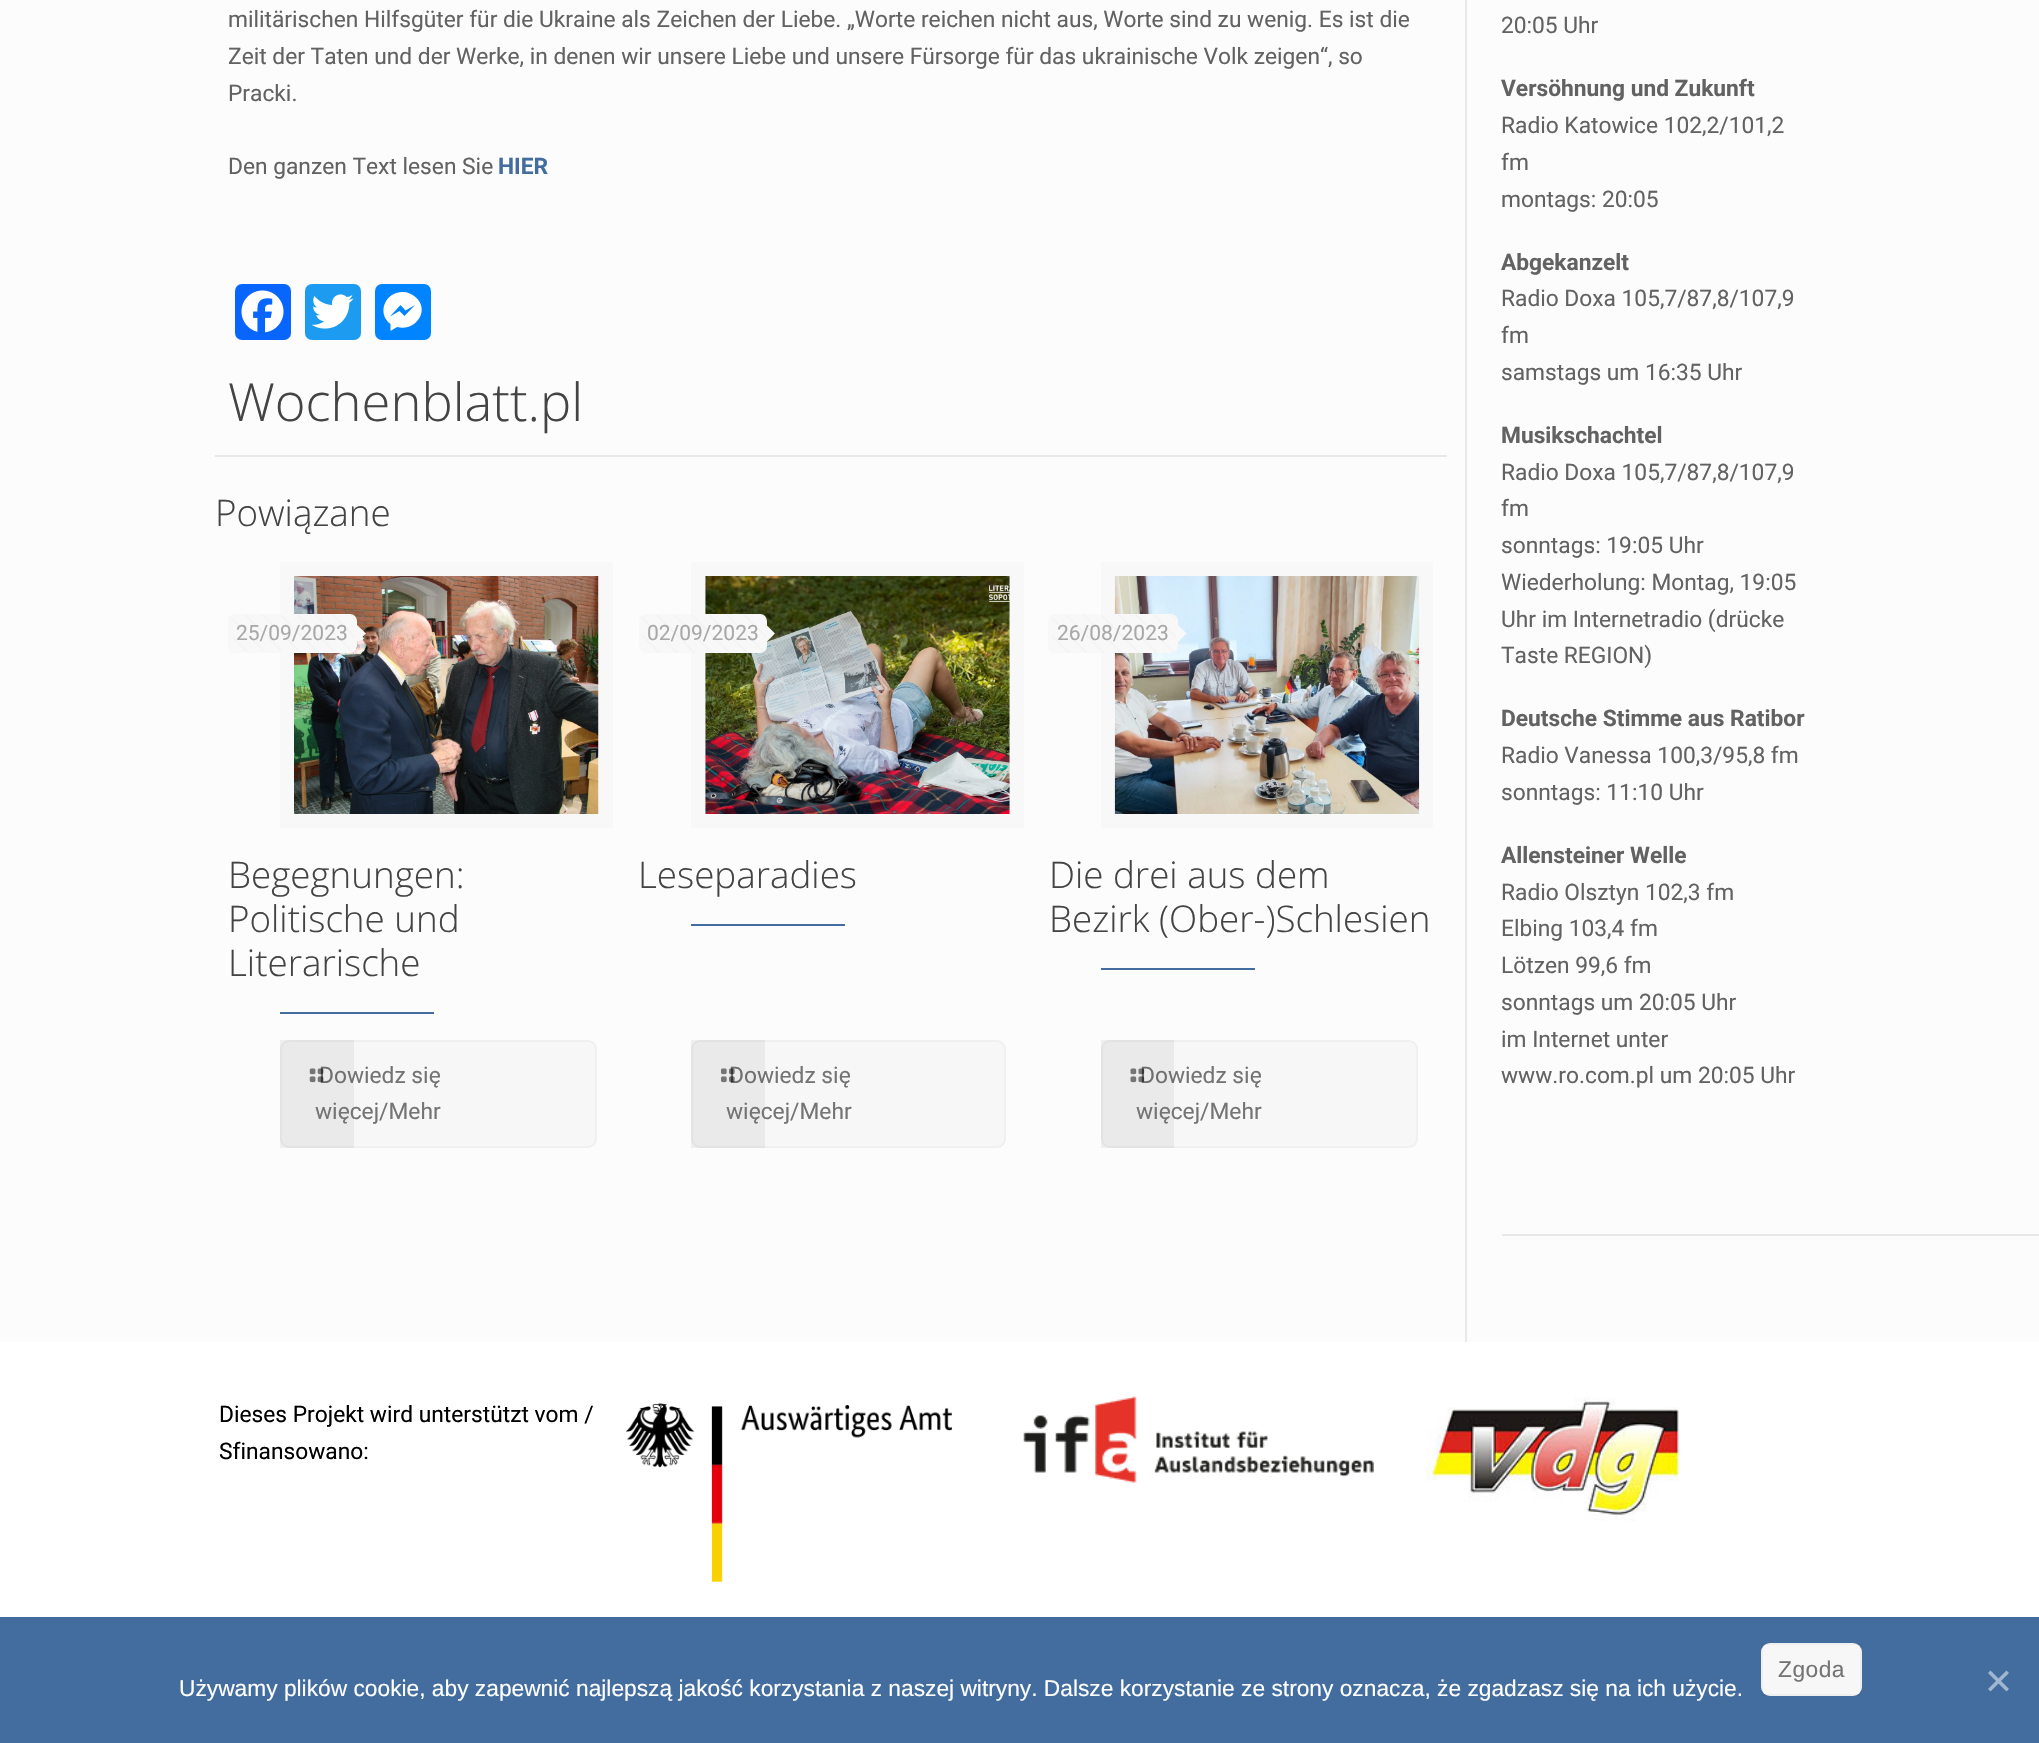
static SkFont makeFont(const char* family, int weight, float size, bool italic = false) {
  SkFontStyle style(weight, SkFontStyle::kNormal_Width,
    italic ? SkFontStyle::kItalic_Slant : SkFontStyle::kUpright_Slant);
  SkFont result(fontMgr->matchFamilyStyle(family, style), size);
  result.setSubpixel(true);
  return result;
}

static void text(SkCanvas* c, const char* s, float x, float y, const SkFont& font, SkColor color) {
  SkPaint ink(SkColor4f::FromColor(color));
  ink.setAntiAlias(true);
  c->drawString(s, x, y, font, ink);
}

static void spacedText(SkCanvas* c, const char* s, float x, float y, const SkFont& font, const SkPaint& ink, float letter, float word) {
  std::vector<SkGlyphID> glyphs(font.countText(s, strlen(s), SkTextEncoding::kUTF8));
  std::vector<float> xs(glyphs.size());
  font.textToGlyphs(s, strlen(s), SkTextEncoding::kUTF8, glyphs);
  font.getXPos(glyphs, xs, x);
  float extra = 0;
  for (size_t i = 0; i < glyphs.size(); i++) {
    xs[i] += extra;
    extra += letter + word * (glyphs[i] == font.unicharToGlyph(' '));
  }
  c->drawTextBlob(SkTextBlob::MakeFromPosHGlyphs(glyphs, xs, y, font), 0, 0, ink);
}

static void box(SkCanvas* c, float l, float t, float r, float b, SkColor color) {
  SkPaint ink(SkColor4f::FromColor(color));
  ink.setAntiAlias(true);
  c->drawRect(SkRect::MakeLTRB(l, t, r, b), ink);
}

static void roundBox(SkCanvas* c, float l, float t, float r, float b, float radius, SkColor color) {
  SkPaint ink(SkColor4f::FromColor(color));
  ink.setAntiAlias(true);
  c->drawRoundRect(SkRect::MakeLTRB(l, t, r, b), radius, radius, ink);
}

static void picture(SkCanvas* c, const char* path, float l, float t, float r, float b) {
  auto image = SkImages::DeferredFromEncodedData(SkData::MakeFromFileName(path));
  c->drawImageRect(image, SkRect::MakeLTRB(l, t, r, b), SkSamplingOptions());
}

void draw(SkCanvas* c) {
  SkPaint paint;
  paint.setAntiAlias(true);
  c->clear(0xfffcfcfc);
  SkFont face1 = makeFont("Roboto", 400, 22.75f);
  text(c, "militärischen Hilfsgüter für die Ukraine als Zeichen der Liebe. „Worte reichen nicht aus, Worte sind zu wenig. Es ist die", 228, 27, face1, 0xff626262);
  text(c, "Zeit der Taten und der Werke, in denen wir unsere Liebe und unsere Fürsorge für das ukrainische Volk zeigen“, so", 228, 64, face1, 0xff626262);
  text(c, "Pracki.", 228, 101, face1, 0xff626262);
  text(c, "Den ganzen Text lesen Sie", 228, 174, face1, 0xff626262);
  SkFont face2 = makeFont("Roboto", 700, 22.75f);
  text(c, "HIER", 498, 174, face2, 0xff436d9f);
  roundBox(c, 235, 284, 291, 340, 7, 0xff0866ff);
  picture(c, "img_01.png", 241, 290, 284, 333);
  roundBox(c, 305, 284, 361, 340, 7, 0xff1d9bf0);
  picture(c, "img_02.png", 311, 294, 354, 329);
  roundBox(c, 375, 284, 431, 340, 7, 0xff0084ff);
  paint.setColor(0xffffffff);
  c->drawPath(SkPathBuilder().moveTo(402.5f, 292).cubicTo(385, 292, 376.5f, 313.5f, 390.5f, 324).lineTo(390.5f, 331).lineTo(397, 327).cubicTo(415, 332, 430.5f, 311, 416, 297.5f).cubicTo(412.5f, 294, 407.5f, 292, 402.5f, 292).moveTo(404.5f, 316).lineTo(399.5f, 311).lineTo(390, 316.5f).lineTo(400.5f, 305).lineTo(405.5f, 310.5f).lineTo(415, 305).close().detach(), paint);
  SkFont face3 = makeFont("Open Sans", 300, 52.5f);
  text(c, "Wochenblatt.pl", 228, 421, face3, 0xff444444);
  box(c, 215, 455, 1447, 457, 0xffe8e8e8);
  SkFont face4 = makeFont("Open Sans", 300, 36.75f);
  text(c, "Powiązane", 215, 526, face4, 0xff444444);
  paint.setStyle(SkPaint::kStroke_Style);
  paint.setStrokeWidth(14);
  paint.setColor(0xfff8f8f8);
  c->drawRect(SkRect::MakeLTRB(287, 569, 606, 821), paint);
  picture(c, "img_03.png", 294, 576, 599, 814);
  roundBox(c, 228, 614, 357, 653, 7, 0xfff8f8f8);
  picture(c, "img_04.png", 233, 615, 355, 651);
  SkFont face5 = makeFont("Roboto", 400, 21);
  text(c, "25/09/2023", 236, 640, face5, 0xffa8a8a8);
  paint.setStyle(SkPaint::kFill_Style);
  c->drawPath(SkPathBuilder().moveTo(357, 642).lineTo(357, 625).lineTo(366, 633.5f).close().detach(), paint);
  text(c, "Begegnungen:", 228, 888, face4, 0xff444444);
  text(c, "Politische und", 228, 932, face4, 0xff444444);
  text(c, "Literarische", 228, 976, face4, 0xff444444);
  box(c, 280, 1012, 434, 1014, 0xff436d9f);
  paint.setColor(0xfff7f7f7);
  c->drawRoundRect(SkRect::MakeLTRB(281, 1041, 596, 1147), 8, 8, paint);
  paint.setStyle(SkPaint::kStroke_Style);
  paint.setStrokeWidth(2);
  paint.setColor(0xfff0f0f0);
  c->drawRoundRect(SkRect::MakeLTRB(281, 1041, 596, 1147), 8, 8, paint);
  text(c, "Dowiedz się", 319, 1083, face1, 0xff747474);
  picture(c, "img_05.png", 309, 1068, 324, 1083);
  box(c, 280, 1040, 354, 1148, 0x0d000000);
  text(c, "więcej/Mehr", 315, 1119, face1, 0xff747474);
  paint.setStrokeWidth(14);
  paint.setColor(0xfff8f8f8);
  c->drawRect(SkRect::MakeLTRB(698, 569, 1017, 821), paint);
  picture(c, "img_06.png", 705, 576, 1010, 814);
  roundBox(c, 639, 614, 767, 653, 7, 0xfff8f8f8);
  picture(c, "img_07.png", 641, 615, 766, 653);
  text(c, "02/09/2023", 647, 640, face5, 0xffa8a8a8);
  paint.setStyle(SkPaint::kFill_Style);
  c->drawPath(SkPathBuilder().moveTo(766.5f, 642).lineTo(766.5f, 625).lineTo(775, 633.5f).close().detach(), paint);
  text(c, "Leseparadies", 638, 888, face4, 0xff444444);
  box(c, 691, 924, 845, 926, 0xff436d9f);
  paint.setColor(0xfff7f7f7);
  c->drawRoundRect(SkRect::MakeLTRB(692, 1041, 1005, 1147), 8, 8, paint);
  paint.setStyle(SkPaint::kStroke_Style);
  paint.setStrokeWidth(2);
  paint.setColor(0xfff0f0f0);
  c->drawRoundRect(SkRect::MakeLTRB(692, 1041, 1005, 1147), 8, 8, paint);
  text(c, "Dowiedz się", 729, 1083, face1, 0xff747474);
  picture(c, "img_08.png", 721, 1068, 735, 1083);
  box(c, 691, 1040, 765, 1148, 0x0d000000);
  text(c, "więcej/Mehr", 726, 1119, face1, 0xff747474);
  paint.setStrokeWidth(14);
  paint.setColor(0xfff8f8f8);
  c->drawRect(SkRect::MakeLTRB(1108, 569, 1426, 821), paint);
  picture(c, "img_09.png", 1114, 576, 1420, 814);
  roundBox(c, 1048, 614, 1178, 653, 7, 0xfff8f8f8);
  picture(c, "img_10.png", 1052, 615, 1176, 653);
  text(c, "26/08/2023", 1057, 640, face5, 0xffa8a8a8);
  paint.setStyle(SkPaint::kFill_Style);
  c->drawPath(SkPathBuilder().moveTo(1178, 642).lineTo(1178, 625).lineTo(1186.5f, 633.5f).close().detach(), paint);
  text(c, "Die drei aus dem", 1049, 888, face4, 0xff444444);
  text(c, "Bezirk (Ober-)Schlesien", 1049, 932, face4, 0xff444444);
  box(c, 1101, 968, 1255, 970, 0xff436d9f);
  paint.setColor(0xfff7f7f7);
  c->drawRoundRect(SkRect::MakeLTRB(1102, 1041, 1417, 1147), 8, 8, paint);
  paint.setStyle(SkPaint::kStroke_Style);
  paint.setStrokeWidth(2);
  paint.setColor(0xfff0f0f0);
  c->drawRoundRect(SkRect::MakeLTRB(1102, 1041, 1417, 1147), 8, 8, paint);
  text(c, "Dowiedz się", 1140, 1083, face1, 0xff747474);
  picture(c, "img_11.png", 1130, 1068, 1145, 1083);
  box(c, 1101, 1040, 1174, 1148, 0x0d000000);
  text(c, "więcej/Mehr", 1136, 1119, face1, 0xff747474);
  box(c, 1465, 0, 1467, 1342, 0xffe8e8e8);
  text(c, "20:05 Uhr", 1501, 33, face1, 0xff626262);
  text(c, "Versöhnung und Zukunft", 1501, 96, face2, 0xff626262);
  text(c, "Radio Katowice 102,2/101,2", 1501, 133, face1, 0xff626262);
  text(c, "fm", 1501, 170, face1, 0xff626262);
  text(c, "montags: 20:05", 1501, 207, face1, 0xff626262);
  text(c, "Abgekanzelt", 1501, 270, face2, 0xff626262);
  text(c, "Radio Doxa 105,7/87,8/107,9", 1501, 306, face1, 0xff626262);
  text(c, "fm", 1501, 343, face1, 0xff626262);
  text(c, "samstags um 16:35 Uhr", 1501, 380, face1, 0xff626262);
  text(c, "Musikschachtel", 1501, 443, face2, 0xff626262);
  text(c, "Radio Doxa 105,7/87,8/107,9", 1501, 480, face1, 0xff626262);
  text(c, "fm", 1501, 516, face1, 0xff626262);
  text(c, "sonntags: 19:05 Uhr", 1501, 553, face1, 0xff626262);
  text(c, "Wiederholung: Montag, 19:05", 1501, 590, face1, 0xff626262);
  text(c, "Uhr im Internetradio (drücke", 1501, 627, face1, 0xff626262);
  text(c, "Taste REGION)", 1501, 663, face1, 0xff626262);
  text(c, "Deutsche Stimme aus Ratibor", 1501, 726, face2, 0xff626262);
  text(c, "Radio Vanessa 100,3/95,8 fm", 1501, 763, face1, 0xff626262);
  text(c, "sonntags: 11:10 Uhr", 1501, 800, face1, 0xff626262);
  text(c, "Allensteiner Welle", 1501, 863, face2, 0xff626262);
  text(c, "Radio Olsztyn 102,3 fm", 1501, 900, face1, 0xff626262);
  text(c, "Elbing 103,4 fm", 1501, 936, face1, 0xff626262);
  text(c, "Lötzen 99,6 fm", 1501, 973, face1, 0xff626262);
  text(c, "sonntags um 20:05 Uhr", 1501, 1010, face1, 0xff626262);
  text(c, "im Internet unter", 1501, 1047, face1, 0xff626262);
  text(c, "www.ro.com.pl um 20:05 Uhr", 1501, 1083, face1, 0xff626262);
  box(c, 1502, 1234, 2039, 1236, 0xffe8e8e8);
  box(c, 0, 1342, 2039, 1617, 0xffffffff);
  text(c, "Dieses Projekt wird unterstützt vom /", 219, 1422, face1, 0xff000000);
  text(c, "Sfinansowano:", 219, 1459, face1, 0xff000000);
  picture(c, "img_12.png", 625, 1403, 953, 1582);
  picture(c, "img_13.png", 1023, 1396, 1374, 1483);
  picture(c, "img_14.png", 1426, 1397, 1679, 1521);
  box(c, 0, 1617, 2039, 1743, 0xff436d9f);
  SkFont face6 = makeFont("Liberation Sans", 400, 22.75f);
  text(c, "Używamy plików cookie, aby zapewnić najlepszą jakość korzystania z naszej witryny. Dalsze korzystanie ze strony oznacza, że zgadzasz się na ich użycie.", 179, 1696, face6, 0xffffffff);
  roundBox(c, 1761, 1643, 1862, 1696, 9, 0xfff7f7f7);
  paint.setColor(0x08000000);
  c->drawRect(SkRect::MakeLTRB(1762, 1644, 1861, 1695), paint);
  paint.setStyle(SkPaint::kFill_Style);
  paint.setColor(0xff747474);
  spacedText(c, "Zgoda", 1778, 1677, face6, paint, 0.5f, 0);
  paint.setColor(0xffa1b6cf);
  c->drawPath(SkPathBuilder().moveTo(2006.5f, 1670.5f).lineTo(2009, 1673).lineTo(1990.5f, 1691.5f).lineTo(1988, 1689).close().detach(), paint);
  c->drawPath(SkPathBuilder().moveTo(1988, 1673).lineTo(1990.5f, 1670.5f).lineTo(2009, 1689).lineTo(2006.5f, 1691.5f).close().detach(), paint);
}
